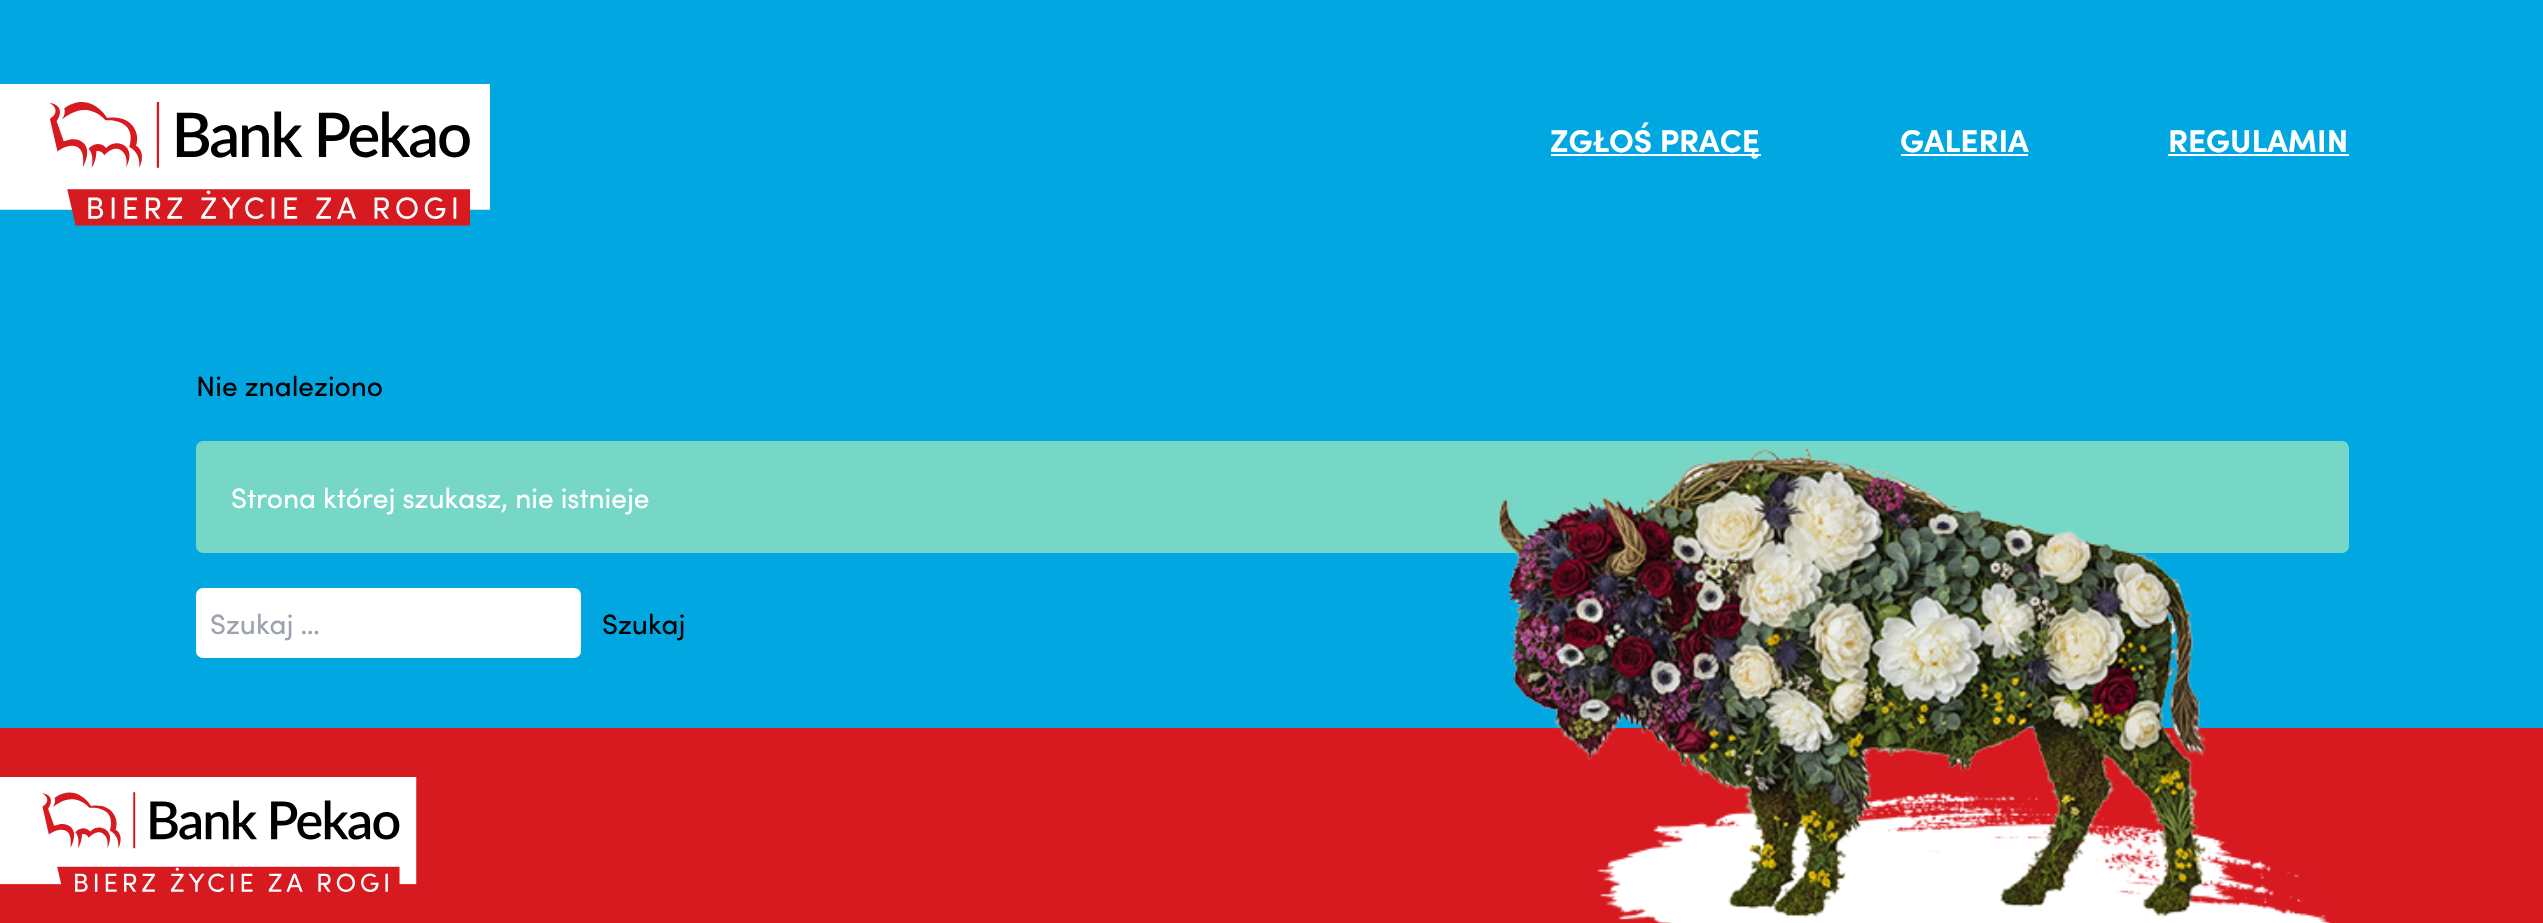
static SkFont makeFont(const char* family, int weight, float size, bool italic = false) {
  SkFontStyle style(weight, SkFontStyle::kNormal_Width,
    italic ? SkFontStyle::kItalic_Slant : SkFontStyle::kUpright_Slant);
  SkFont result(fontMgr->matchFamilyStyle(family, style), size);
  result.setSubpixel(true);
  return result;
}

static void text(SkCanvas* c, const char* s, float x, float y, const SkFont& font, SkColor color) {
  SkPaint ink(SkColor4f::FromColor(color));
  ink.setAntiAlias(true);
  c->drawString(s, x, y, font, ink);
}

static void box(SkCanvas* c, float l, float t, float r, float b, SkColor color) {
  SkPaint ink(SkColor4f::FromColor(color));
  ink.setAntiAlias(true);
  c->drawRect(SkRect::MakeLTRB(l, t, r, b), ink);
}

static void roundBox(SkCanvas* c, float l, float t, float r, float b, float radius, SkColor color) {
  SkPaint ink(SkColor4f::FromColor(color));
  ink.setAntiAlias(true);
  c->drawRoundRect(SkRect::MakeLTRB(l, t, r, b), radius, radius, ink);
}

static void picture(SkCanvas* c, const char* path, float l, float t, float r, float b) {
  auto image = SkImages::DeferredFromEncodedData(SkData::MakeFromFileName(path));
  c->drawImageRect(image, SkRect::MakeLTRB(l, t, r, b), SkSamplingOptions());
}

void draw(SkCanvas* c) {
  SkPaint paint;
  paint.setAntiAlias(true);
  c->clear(0xff00a7e1);
  picture(c, "img_01.png", 0, 84, 490, 226);
  box(c, 1551, 154, 1761, 156, 0xffffffff);
  SkFont face1 = makeFont("Sofia", 700, 31.5f);
  text(c, "ZGŁOŚ PRACĘ", 1550, 152, face1, 0xffffffff);
  text(c, "GALERIA", 1900, 152, face1, 0xffffffff);
  box(c, 1901, 154, 2028, 156, 0xffffffff);
  text(c, "REGULAMIN", 2168, 152, face1, 0xffffffff);
  box(c, 2168, 154, 2349, 156, 0xffffffff);
  SkFont face2 = makeFont("Sofia", 400, 28);
  text(c, "Nie znaleziono", 196, 396, face2, 0xff000000);
  roundBox(c, 196, 441, 2349, 553, 7, 0xff77d7c7);
  text(c, "Strona której szukasz, nie istnieje", 231, 508, face2, 0xffffffff);
  roundBox(c, 196, 588, 581, 658, 7, 0xffffffff);
  text(c, "Szukaj …", 210, 634, face2, 0xff9ca3af);
  text(c, "Szukaj", 602, 634, face2, 0xff000000);
  box(c, 0, 728, 2543, 923, 0xffd71920);
  picture(c, "img_02.png", 0, 777, 417, 892);
  picture(c, "img_03.png", 1498, 448, 2332, 923);
}
